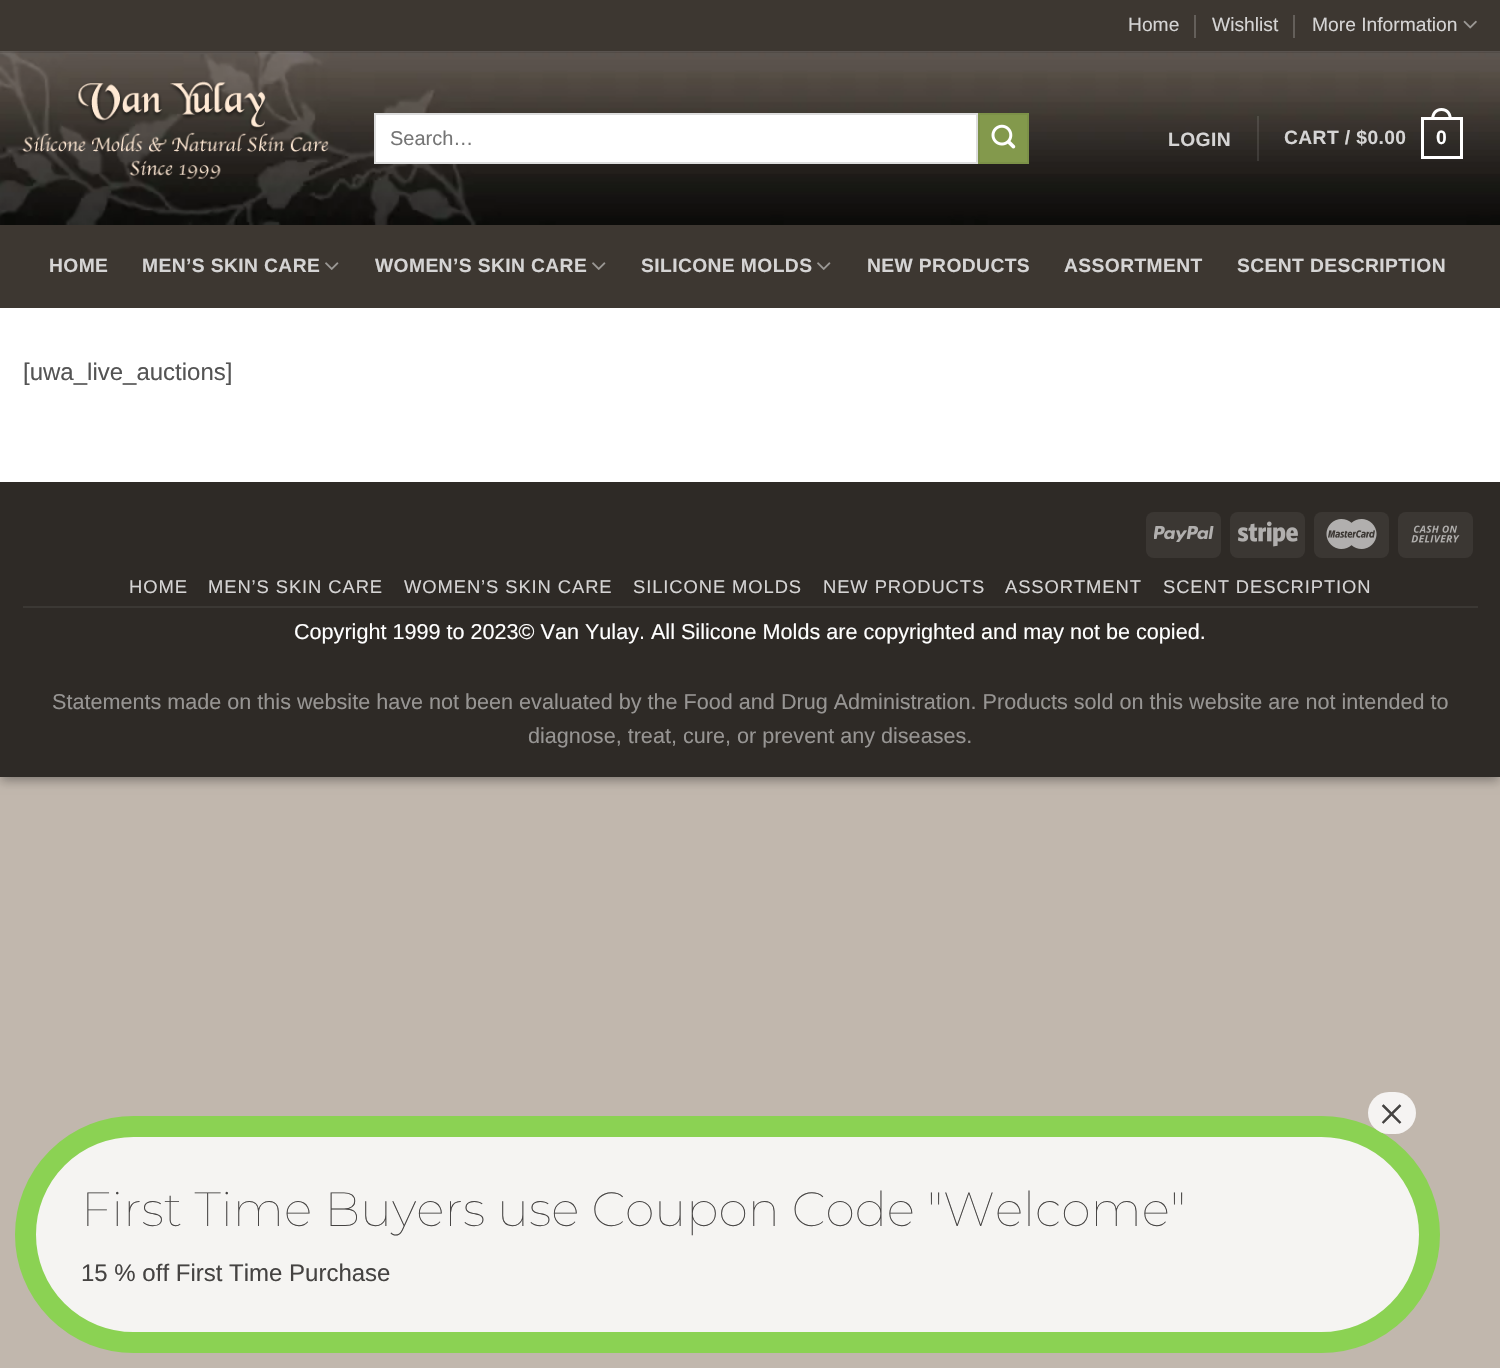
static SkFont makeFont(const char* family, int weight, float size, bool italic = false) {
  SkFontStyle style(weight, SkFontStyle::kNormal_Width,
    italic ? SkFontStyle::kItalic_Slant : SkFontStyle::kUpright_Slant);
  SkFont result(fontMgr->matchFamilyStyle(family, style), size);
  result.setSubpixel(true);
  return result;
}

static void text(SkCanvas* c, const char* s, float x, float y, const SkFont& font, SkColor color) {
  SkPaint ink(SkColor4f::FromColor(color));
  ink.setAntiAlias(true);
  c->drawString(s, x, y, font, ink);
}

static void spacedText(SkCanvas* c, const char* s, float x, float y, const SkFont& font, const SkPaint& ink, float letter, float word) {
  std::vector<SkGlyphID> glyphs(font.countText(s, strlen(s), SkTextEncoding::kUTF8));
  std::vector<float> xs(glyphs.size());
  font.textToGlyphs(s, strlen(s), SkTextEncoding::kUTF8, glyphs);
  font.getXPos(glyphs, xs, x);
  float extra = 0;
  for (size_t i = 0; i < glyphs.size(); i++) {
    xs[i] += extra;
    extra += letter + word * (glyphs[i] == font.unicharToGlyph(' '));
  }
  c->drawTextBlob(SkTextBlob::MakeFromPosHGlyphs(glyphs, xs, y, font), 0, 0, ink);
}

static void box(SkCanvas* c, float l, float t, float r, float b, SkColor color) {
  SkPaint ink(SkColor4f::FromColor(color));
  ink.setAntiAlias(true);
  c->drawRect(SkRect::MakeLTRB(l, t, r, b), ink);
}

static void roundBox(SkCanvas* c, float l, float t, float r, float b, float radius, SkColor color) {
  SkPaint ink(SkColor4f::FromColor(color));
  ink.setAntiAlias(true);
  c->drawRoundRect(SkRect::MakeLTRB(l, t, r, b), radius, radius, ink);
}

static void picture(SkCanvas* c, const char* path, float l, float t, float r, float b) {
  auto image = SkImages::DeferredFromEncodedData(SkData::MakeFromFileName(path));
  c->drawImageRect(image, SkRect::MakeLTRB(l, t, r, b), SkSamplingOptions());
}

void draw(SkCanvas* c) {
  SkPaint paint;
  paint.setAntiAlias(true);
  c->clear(0xffc1b7ad);
  paint.setColor(0x3b000000);
  paint.setMaskFilter(SkMaskFilter::MakeBlur(kNormal_SkBlurStyle, 4.5f));
  c->drawRect(SkRect::MakeLTRB(0, 5, 1500, 782), paint);
  paint.setMaskFilter(nullptr);
  paint.setColor(0x29000000);
  paint.setMaskFilter(SkMaskFilter::MakeBlur(kNormal_SkBlurStyle, 4.5f));
  c->drawRect(SkRect::MakeLTRB(6, 11, 1494, 776), paint);
  paint.setMaskFilter(nullptr);
  box(c, 0, 308, 1500, 482, 0xffffffff);
  box(c, 0, 0, 1500, 51, 0xff3d3731);
  SkFont face1 = makeFont("Liberation Sans", 400, 19.25f);
  text(c, "Home", 1128, 31, face1, 0xffd5d4d4);
  box(c, 1194, 15, 1196, 38, 0xff645f5a);
  text(c, "Wishlist", 1212, 31, face1, 0xffd5d4d4);
  box(c, 1293, 15, 1295, 38, 0xff645f5a);
  text(c, "More Information", 1312, 31, face1, 0xffd5d4d4);
  picture(c, "img_01.png", 1463, 20, 1477, 29);
  picture(c, "img_02.png", 0, 51, 1500, 225);
  picture(c, "img_03.png", 22, 81, 329, 179);
  paint.setColor(0xffffffff);
  c->drawRect(SkRect::MakeLTRB(375, 114, 977, 163), paint);
  paint.setStyle(SkPaint::kStroke_Style);
  paint.setStrokeWidth(2);
  paint.setColor(0xffdddddd);
  c->drawRect(SkRect::MakeLTRB(375, 114, 977, 163), paint);
  SkFont face2 = makeFont("Liberation Sans", 400, 20);
  text(c, "Search…", 390, 145, face2, 0xff757575);
  paint.setStyle(SkPaint::kFill_Style);
  paint.setColor(0xff83994c);
  c->drawRect(SkRect::MakeLTRB(979, 114, 1028, 163), paint);
  paint.setStyle(SkPaint::kStroke_Style);
  paint.setColor(0xff7c9148);
  c->drawRect(SkRect::MakeLTRB(979, 114, 1028, 163), paint);
  picture(c, "img_04.png", 991, 124, 1016, 149);
  SkFont face3 = makeFont("Liberation Sans", 700, 19.25f);
  paint.setStyle(SkPaint::kFill_Style);
  paint.setColor(0xffd5d4d4);
  spacedText(c, "LOGIN", 1168, 146, face3, paint, 0.4f, 0);
  box(c, 1257, 116, 1259, 161, 0x1affffff);
  spacedText(c, "CART / $0.00", 1284, 144, face3, paint, 0.4f, 0);
  paint.setStyle(SkPaint::kStroke_Style);
  paint.setStrokeWidth(3);
  paint.setColor(0xffffffff);
  c->drawRect(SkRect::MakeLTRB(1422.5f, 118.5f, 1461.5f, 157.5f), paint);
  paint.setStyle(SkPaint::kFill_Style);
  c->drawPath(SkPathBuilder(SkPathFillType::kEvenOdd).moveTo(1441.5f, 108).cubicTo(1448.5f, 108, 1452, 113.5f, 1452, 120).lineTo(1431, 120).cubicTo(1431, 113.5f, 1434.5f, 108, 1441.5f, 108).close().moveTo(1441.5f, 111).cubicTo(1447, 111, 1449, 115.5f, 1449, 120).lineTo(1434, 120).cubicTo(1434, 115.5f, 1436, 111, 1441.5f, 111).close().detach(), paint);
  spacedText(c, "0", 1436, 144, face3, paint, 0.4f, 0);
  box(c, 0, 225, 1500, 308, 0xff3d3731);
  paint.setColor(0xffd5d4d4);
  spacedText(c, "HOME", 49, 272, face3, paint, 0.4f, 0);
  spacedText(c, "MEN’S SKIN CARE", 142, 272, face3, paint, 0.4f, 0);
  picture(c, "img_05.png", 325, 262, 339, 270);
  spacedText(c, "WOMEN’S SKIN CARE", 375, 272, face3, paint, 0.4f, 0);
  picture(c, "img_05.png", 592, 262, 606, 270);
  spacedText(c, "SILICONE MOLDS", 641, 272, face3, paint, 0.4f, 0);
  picture(c, "img_05.png", 817, 262, 831, 270);
  spacedText(c, "NEW PRODUCTS", 867, 272, face3, paint, 0.4f, 0);
  spacedText(c, "ASSORTMENT", 1064, 272, face3, paint, 0.4f, 0);
  spacedText(c, "SCENT DESCRIPTION", 1237, 272, face3, paint, 0.4f, 0);
  SkFont face4 = makeFont("Liberation Sans", 400, 24);
  text(c, "[uwa_live_auctions]", 23, 380, face4, 0xff545454);
  box(c, 0, 482, 1500, 777, 0xff2e2a26);
  roundBox(c, 1146, 512, 1221, 558, 8, 0xff3b3733);
  picture(c, "img_06.png", 1154, 526, 1214, 542);
  roundBox(c, 1230, 512, 1305, 558, 8, 0xff3b3733);
  picture(c, "img_07.png", 1238, 521, 1298, 547);
  roundBox(c, 1314, 512, 1389, 558, 8, 0xff3b3733);
  picture(c, "img_08.png", 1326, 519, 1377, 549);
  roundBox(c, 1398, 512, 1473, 558, 8, 0xff3b3733);
  picture(c, "img_09.png", 1411, 525, 1460, 543);
  box(c, 23, 606, 1478, 608, 0xff3b3834);
  SkFont face5 = makeFont("Liberation Sans", 400, 18.4f);
  spacedText(c, "HOME", 129, 593, face5, paint, 0.9f, 0);
  spacedText(c, "MEN’S SKIN CARE", 208, 593, face5, paint, 0.9f, 0);
  spacedText(c, "WOMEN’S SKIN CARE", 404, 593, face5, paint, 0.9f, 0);
  spacedText(c, "SILICONE MOLDS", 633, 593, face5, paint, 0.9f, 0);
  spacedText(c, "NEW PRODUCTS", 823, 593, face5, paint, 0.9f, 0);
  spacedText(c, "ASSORTMENT", 1005, 593, face5, paint, 0.9f, 0);
  spacedText(c, "SCENT DESCRIPTION", 1163, 593, face5, paint, 0.9f, 0);
  SkFont face6 = makeFont("Liberation Sans", 400, 21.6f);
  text(c, "Copyright 1999 to 2023© Van Yulay. All Silicone Molds are copyrighted and may not be copied.", 294, 639, face6, 0xffffffff);
  text(c, "Statements made on this website have not been evaluated by the Food and Drug Administration. Products sold on this website are not intended to", 52, 709, face6, 0xff979593);
  text(c, "diagnose, treat, cure, or prevent any diseases.", 528, 743, face6, 0xff979593);
  paint.setColor(0xfff5f4f2);
  c->drawRoundRect(SkRect::MakeLTRB(25.5f, 1126.5f, 1429.5f, 1342.5f), 108, 108, paint);
  paint.setStyle(SkPaint::kStroke_Style);
  paint.setStrokeWidth(21);
  paint.setColor(0xff8bd253);
  c->drawRoundRect(SkRect::MakeLTRB(25.5f, 1126.5f, 1429.5f, 1342.5f), 108, 108, paint);
  roundBox(c, 1368, 1092, 1416, 1134, 21, 0xfff5f3f2);
  SkFont face7 = makeFont("Liberation Serif", 400, 48);
  text(c, "×", 1378, 1130, face7, 0xff454342);
  SkFont face8 = makeFont("Montserrat", 100, 48);
  text(c, "First Time Buyers use Coupon Code \"Welcome\"", 81, 1226, face8, 0xff454342);
  text(c, "15 % off First Time Purchase", 81, 1281, face4, 0xff454342);
}
